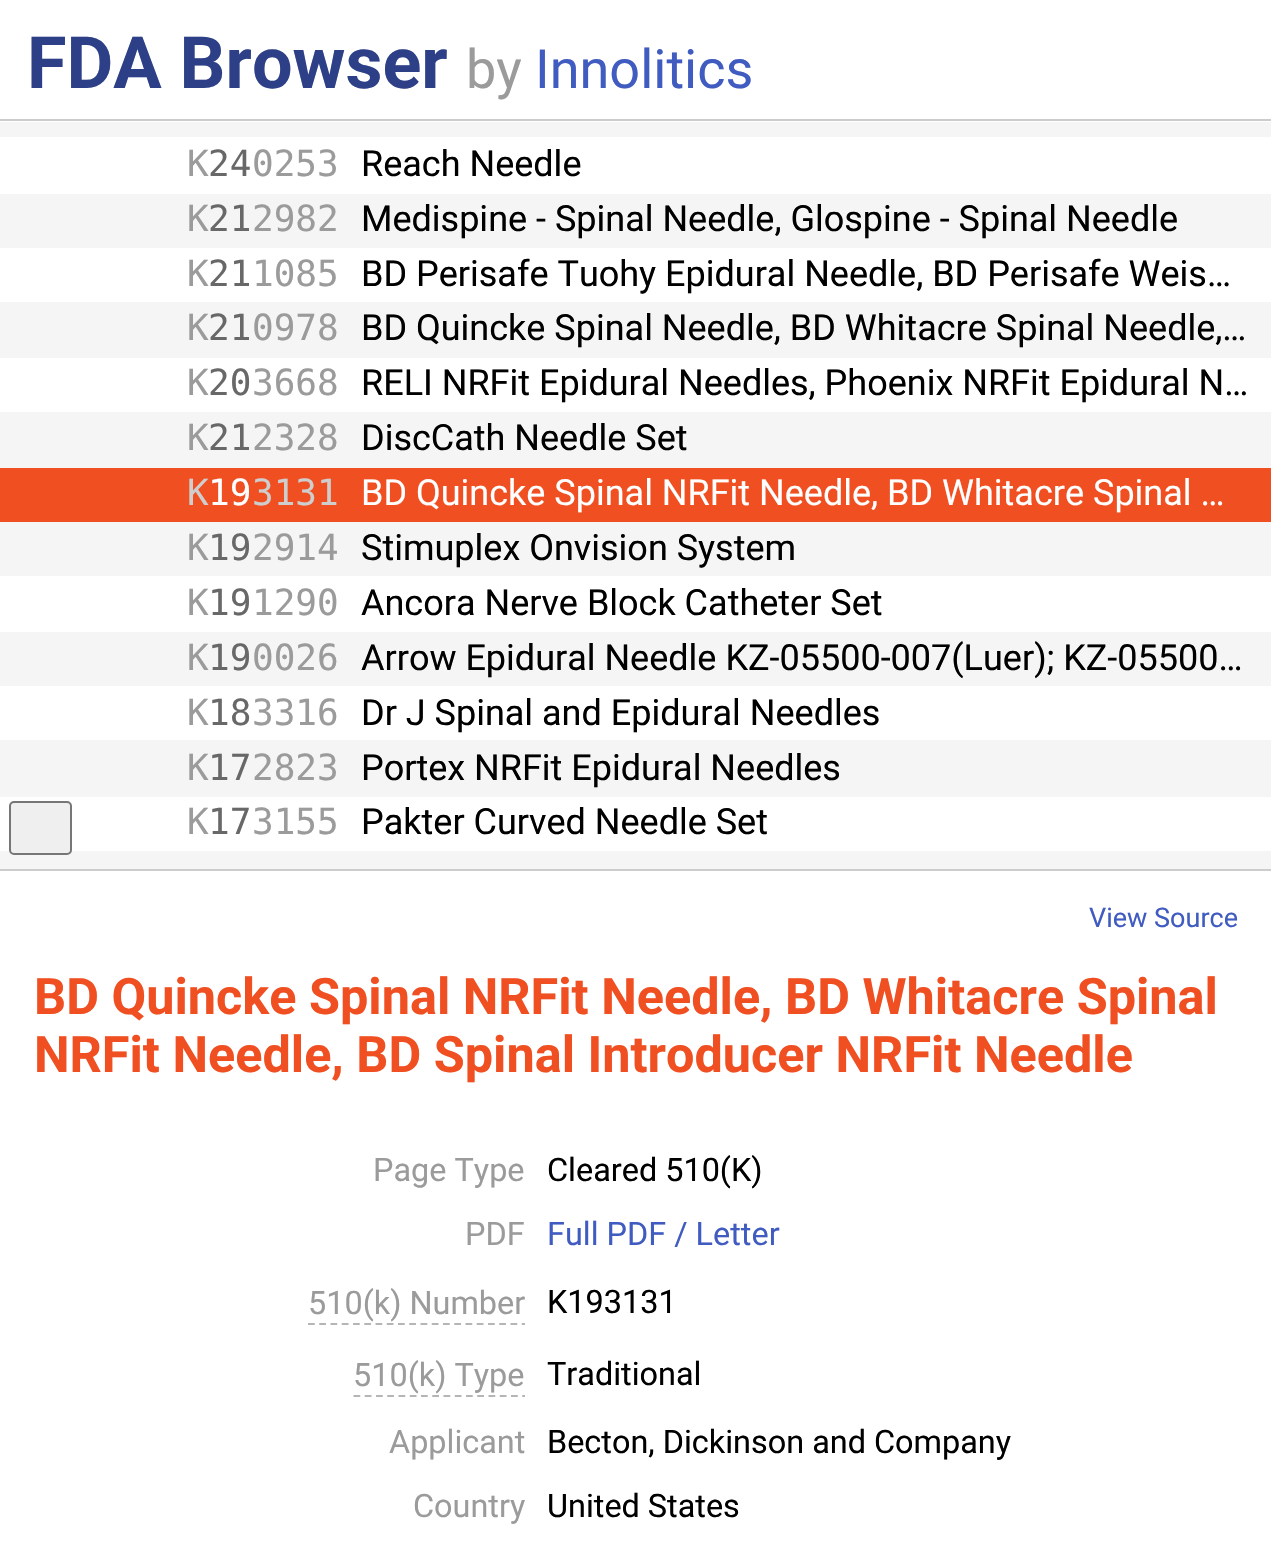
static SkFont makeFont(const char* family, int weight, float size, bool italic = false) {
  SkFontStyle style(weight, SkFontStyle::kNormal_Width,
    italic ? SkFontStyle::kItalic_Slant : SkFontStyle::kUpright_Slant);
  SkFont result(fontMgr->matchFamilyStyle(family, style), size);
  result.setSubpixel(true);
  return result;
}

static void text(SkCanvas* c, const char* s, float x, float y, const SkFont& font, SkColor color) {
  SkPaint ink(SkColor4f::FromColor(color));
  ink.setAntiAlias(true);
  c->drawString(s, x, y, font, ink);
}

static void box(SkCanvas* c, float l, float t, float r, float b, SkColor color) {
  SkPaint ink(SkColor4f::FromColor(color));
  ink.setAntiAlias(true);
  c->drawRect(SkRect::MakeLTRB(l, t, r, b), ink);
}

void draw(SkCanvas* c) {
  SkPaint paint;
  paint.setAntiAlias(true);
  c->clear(0xffffffff);
  box(c, 0, 119, 1271, 121, 0xffcccccc);
  SkFont face1 = makeFont("Roboto", 700, 72);
  text(c, "FDA Browser", 27, 88, face1, 0xff2d4087);
  SkFont face2 = makeFont("Roboto", 400, 54);
  text(c, "by", 466, 88, face2, 0xff9b9b9b);
  text(c, "Innolitics", 535, 88, face2, 0xff415cc0);
  box(c, 0, 122, 1271, 869, 0xfff5f5f5);
  box(c, 0, 137, 1271, 194, 0xffffffff);
  SkFont face3 = makeFont("DejaVu Sans Mono", 400, 36);
  text(c, "K", 187, 176, face3, 0xff9b9b9b);
  text(c, "24", 208, 176, face3, 0xff686868);
  text(c, "0253", 252, 176, face3, 0xff9b9b9b);
  SkFont face4 = makeFont("Roboto", 400, 36);
  text(c, "Reach Needle", 361, 176, face4, 0xff000000);
  text(c, "K", 187, 231, face3, 0xff9b9b9b);
  text(c, "21", 208, 231, face3, 0xff686868);
  text(c, "2982", 252, 231, face3, 0xff9b9b9b);
  text(c, "Medispine - Spinal Needle, Glospine - Spinal Needle", 361, 231, face4, 0xff000000);
  box(c, 0, 248, 1271, 302, 0xffffffff);
  text(c, "K", 187, 286, face3, 0xff9b9b9b);
  text(c, "21", 208, 286, face3, 0xff686868);
  text(c, "1085", 252, 286, face3, 0xff9b9b9b);
  text(c, "BD Perisafe Tuohy Epidural Needle, BD Perisafe Weis…", 361, 286, face4, 0xff000000);
  text(c, "K", 187, 340, face3, 0xff9b9b9b);
  text(c, "21", 208, 340, face3, 0xff686868);
  text(c, "0978", 252, 340, face3, 0xff9b9b9b);
  text(c, "BD Quincke Spinal Needle, BD Whitacre Spinal Needle,…", 361, 340, face4, 0xff000000);
  box(c, 0, 358, 1271, 412, 0xffffffff);
  text(c, "K", 187, 395, face3, 0xff9b9b9b);
  text(c, "20", 208, 395, face3, 0xff686868);
  text(c, "3668", 252, 395, face3, 0xff9b9b9b);
  text(c, "RELI NRFit Epidural Needles, Phoenix NRFit Epidural N…", 361, 395, face4, 0xff000000);
  text(c, "K", 187, 450, face3, 0xff9b9b9b);
  text(c, "21", 208, 450, face3, 0xff686868);
  text(c, "2328", 252, 450, face3, 0xff9b9b9b);
  text(c, "DiscCath Needle Set", 361, 450, face4, 0xff000000);
  box(c, 0, 468, 1271, 522, 0xfff04f22);
  text(c, "K", 187, 505, face3, 0xffcecece);
  text(c, "19", 208, 505, face3, 0xffffffff);
  text(c, "3131", 252, 505, face3, 0xffcecece);
  text(c, "BD Quincke Spinal NRFit Needle, BD Whitacre Spinal …", 361, 505, face4, 0xffffffff);
  text(c, "K", 187, 560, face3, 0xff9b9b9b);
  text(c, "19", 208, 560, face3, 0xff686868);
  text(c, "2914", 252, 560, face3, 0xff9b9b9b);
  text(c, "Stimuplex Onvision System", 361, 560, face4, 0xff000000);
  box(c, 0, 576, 1271, 632, 0xffffffff);
  text(c, "K", 187, 615, face3, 0xff9b9b9b);
  text(c, "19", 208, 615, face3, 0xff686868);
  text(c, "1290", 252, 615, face3, 0xff9b9b9b);
  text(c, "Ancora Nerve Block Catheter Set", 361, 615, face4, 0xff000000);
  text(c, "K", 187, 670, face3, 0xff9b9b9b);
  text(c, "19", 208, 670, face3, 0xff686868);
  text(c, "0026", 252, 670, face3, 0xff9b9b9b);
  text(c, "Arrow Epidural Needle KZ-05500-007(Luer); KZ-05500…", 361, 670, face4, 0xff000000);
  box(c, 0, 686, 1271, 740, 0xffffffff);
  text(c, "K", 187, 725, face3, 0xff9b9b9b);
  text(c, "18", 208, 725, face3, 0xff686868);
  text(c, "3316", 252, 725, face3, 0xff9b9b9b);
  text(c, "Dr J Spinal and Epidural Needles", 361, 725, face4, 0xff000000);
  text(c, "K", 187, 780, face3, 0xff9b9b9b);
  text(c, "17", 208, 780, face3, 0xff686868);
  text(c, "2823", 252, 780, face3, 0xff9b9b9b);
  text(c, "Portex NRFit Epidural Needles", 361, 780, face4, 0xff000000);
  box(c, 0, 797, 1271, 851, 0xffffffff);
  text(c, "K", 187, 834, face3, 0xff9b9b9b);
  text(c, "17", 208, 834, face3, 0xff686868);
  text(c, "3155", 252, 834, face3, 0xff9b9b9b);
  text(c, "Pakter Curved Needle Set", 361, 834, face4, 0xff000000);
  box(c, 0, 869, 1271, 871, 0xffcccccc);
  paint.setColor(0xffefefef);
  c->drawRoundRect(SkRect::MakeLTRB(10, 802, 71, 854), 4, 4, paint);
  paint.setStyle(SkPaint::kStroke_Style);
  paint.setStrokeWidth(2);
  paint.setColor(0xff767676);
  c->drawRoundRect(SkRect::MakeLTRB(10, 802, 71, 854), 4, 4, paint);
  SkFont face5 = makeFont("Roboto", 400, 27);
  text(c, "View Source", 1089, 927, face5, 0xff415cc0);
  SkFont face6 = makeFont("Roboto", 700, 50.4f);
  text(c, "BD Quincke Spinal NRFit Needle, BD Whitacre Spinal", 34, 1014, face6, 0xfff04f22);
  text(c, "NRFit Needle, BD Spinal Introducer NRFit Needle", 34, 1072, face6, 0xfff04f22);
  SkFont face7 = makeFont("Roboto", 400, 32.4f);
  text(c, "Page Type", 373, 1181, face7, 0xff9b9b9b);
  text(c, "Cleared 510(K)", 547, 1181, face7, 0xff000000);
  text(c, "PDF", 465, 1245, face7, 0xff9b9b9b);
  text(c, "Full PDF / Letter", 547, 1245, face7, 0xff415cc0);
  text(c, "510(k) Number", 308, 1314, face7, 0xff9b9b9b);
  paint.setStrokeWidth(2.2f);
  paint.setColor(0xffb5b5b5);
  paint.setPathEffect(SkDashPathEffect::Make({{6.75f, 4.5f}}, 0));
  c->drawPath(SkPathBuilder().moveTo(308, 1324).lineTo(525, 1324).detach(), paint);
  paint.setPathEffect(nullptr);
  text(c, "K193131", 547, 1313, face7, 0xff000000);
  text(c, "510(k) Type", 353, 1386, face7, 0xff9b9b9b);
  paint.setPathEffect(SkDashPathEffect::Make({{6.75f, 4.5f}}, 0));
  c->drawPath(SkPathBuilder().moveTo(353.5f, 1396).lineTo(525, 1396).detach(), paint);
  paint.setPathEffect(nullptr);
  text(c, "Traditional", 547, 1385, face7, 0xff000000);
  text(c, "Applicant", 389, 1453, face7, 0xff9b9b9b);
  text(c, "Becton, Dickinson and Company", 547, 1453, face7, 0xff000000);
  text(c, "Country", 413, 1517, face7, 0xff9b9b9b);
  text(c, "United States", 547, 1517, face7, 0xff000000);
}
